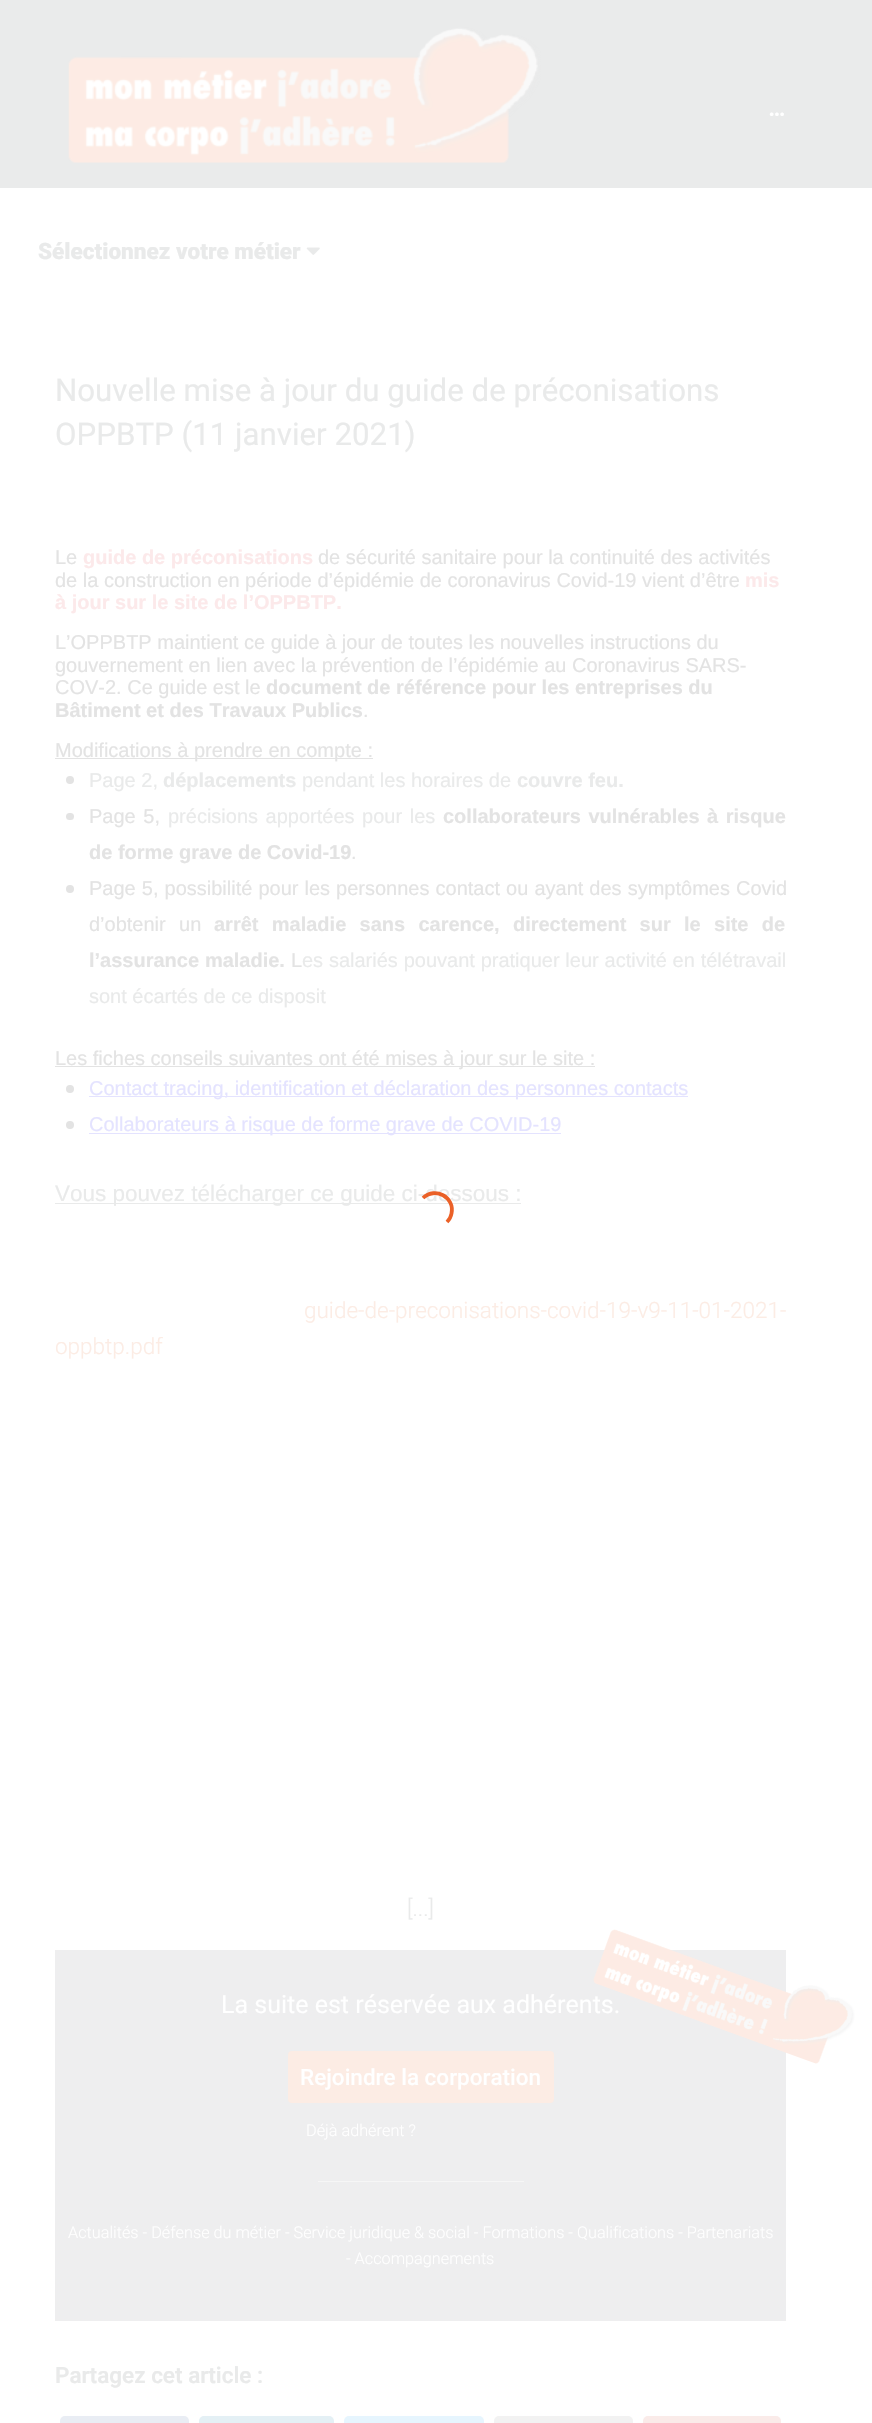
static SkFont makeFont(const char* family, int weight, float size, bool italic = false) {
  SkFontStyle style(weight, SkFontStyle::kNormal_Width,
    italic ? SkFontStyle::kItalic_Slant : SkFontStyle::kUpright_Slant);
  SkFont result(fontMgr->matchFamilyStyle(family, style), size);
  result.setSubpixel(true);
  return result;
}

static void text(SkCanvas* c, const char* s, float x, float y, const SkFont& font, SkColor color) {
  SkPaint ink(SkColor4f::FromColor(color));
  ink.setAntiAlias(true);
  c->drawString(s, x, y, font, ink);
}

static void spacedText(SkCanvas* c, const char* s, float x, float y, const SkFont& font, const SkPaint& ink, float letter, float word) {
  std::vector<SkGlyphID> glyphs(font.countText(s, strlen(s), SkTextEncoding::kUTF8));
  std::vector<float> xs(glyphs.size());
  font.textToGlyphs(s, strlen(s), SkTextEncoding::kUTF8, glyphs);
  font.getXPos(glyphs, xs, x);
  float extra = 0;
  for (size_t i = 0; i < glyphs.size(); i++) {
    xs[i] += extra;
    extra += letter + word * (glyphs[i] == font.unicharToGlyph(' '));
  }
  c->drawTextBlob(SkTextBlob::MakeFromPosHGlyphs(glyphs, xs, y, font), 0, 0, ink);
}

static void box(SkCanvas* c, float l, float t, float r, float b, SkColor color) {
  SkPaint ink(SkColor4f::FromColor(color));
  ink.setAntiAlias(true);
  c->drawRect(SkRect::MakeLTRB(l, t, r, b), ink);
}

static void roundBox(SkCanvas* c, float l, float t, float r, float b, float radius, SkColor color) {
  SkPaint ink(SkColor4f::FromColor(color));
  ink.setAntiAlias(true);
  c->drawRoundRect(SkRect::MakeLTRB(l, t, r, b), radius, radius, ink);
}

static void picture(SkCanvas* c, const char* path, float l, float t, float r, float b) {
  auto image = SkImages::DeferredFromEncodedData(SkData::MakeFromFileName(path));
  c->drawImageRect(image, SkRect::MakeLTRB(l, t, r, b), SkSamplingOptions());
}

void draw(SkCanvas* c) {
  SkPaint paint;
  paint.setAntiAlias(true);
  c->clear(0xffffffff);
  box(c, 0, 0, 872, 188, 0xffeaebeb);
  picture(c, "img_01.png", 68, 27, 541, 163);
  SkFont face1 = makeFont("Lato", 700, 19);
  text(c, "···", 769, 120, face1, 0xffffffff);
  SkFont face2 = makeFont("Roboto", 900, 22.5f);
  text(c, "Sélectionnez votre métier", 38, 259, face2, 0xffe9eaea);
  picture(c, "img_02.png", 306, 247, 320, 255);
  SkFont face3 = makeFont("Roboto", 400, 31.25f);
  text(c, "Nouvelle mise à jour du guide de préconisations", 55, 401, face3, 0xffe9eaea);
  text(c, "OPPBTP (11 janvier 2021)", 55, 445, face3, 0xffe9eaea);
  SkFont face4 = makeFont("Liberation Sans", 400, 20);
  text(c, "Le", 55, 564, face4, 0xffe3e3e3);
  SkFont face5 = makeFont("Liberation Sans", 700, 20);
  text(c, "guide de préconisations", 83, 564, face5, 0xfffce9ea);
  text(c, "de sécurité sanitaire pour la continuité des activités", 318, 564, face4, 0xffe3e3e3);
  text(c, "de la construction en période d’épidémie de coronavirus Covid-19 vient d’être", 55, 587, face4, 0xffe3e3e3);
  text(c, "mis", 745, 587, face5, 0xfffce9ea);
  text(c, "à jour sur le site de l’OPPBTP.", 55, 609, face5, 0xfffce9ea);
  text(c, "L’OPPBTP maintient ce guide à jour de toutes les nouvelles instructions du", 55, 649, face4, 0xffe3e3e3);
  text(c, "gouvernement en lien avec la prévention de l’épidémie au Coronavirus SARS-", 55, 672, face4, 0xffe3e3e3);
  text(c, "COV-2. Ce guide est le", 55, 694, face4, 0xffe3e3e3);
  text(c, "document de référence pour les entreprises du", 266, 694, face5, 0xffe3e3e3);
  text(c, "Bâtiment et des Travaux Publics", 55, 717, face5, 0xffe3e3e3);
  text(c, ".", 363, 717, face4, 0xffe3e3e3);
  box(c, 55, 758, 373, 759, 0xffe3e3e3);
  text(c, "Modifications à prendre en compte :", 55, 757, face4, 0xffe3e3e3);
  paint.setColor(0xffe3e3e3);
  c->drawCircle(70, 780, 4, paint);
  text(c, "Page 2,", 89, 787, face4, 0xffe9eaea);
  text(c, "déplacements", 163, 787, face5, 0xffe9eaea);
  text(c, "pendant les horaires de", 302, 787, face4, 0xffe9eaea);
  text(c, "couvre feu.", 517, 787, face5, 0xffe9eaea);
  roundBox(c, 66, 813, 74, 820, 3.5f, 0xffe3e3e3);
  spacedText(c, "Page 5,", 89, 823, face4, paint, 0, 2);
  paint.setColor(0xffe9eaea);
  spacedText(c, "précisions apportées pour les", 168, 823, face4, paint, 0, 2);
  paint.setColor(0xffe3e3e3);
  spacedText(c, "collaborateurs vulnérables à risque", 443, 823, face5, paint, 0, 2);
  text(c, "de forme grave de Covid-19", 89, 859, face5, 0xffe3e3e3);
  text(c, ".", 351, 859, face4, 0xffe3e3e3);
  c->drawCircle(70, 889, 4, paint);
  spacedText(c, "Page 5, possibilité pour les personnes contact ou ayant des symptômes Covid", 89, 895, face4, paint, 0, 0.5f);
  spacedText(c, "d’obtenir un", 89, 931, face4, paint, 0, 7.75f);
  spacedText(c, "arrêt maladie sans carence, directement sur le site de", 214, 931, face5, paint, 0, 7.75f);
  spacedText(c, "l’assurance maladie.", 89, 967, face5, paint, 0, 0.25f);
  text(c, "L", 291, 967, face4, 0xffe3e3e3);
  paint.setColor(0xffe9eaea);
  spacedText(c, "es salariés pouvant pratiquer leur activité en télétravail", 302, 967, face4, paint, 0, 0.25f);
  text(c, "sont écartés de ce disposit", 89, 1003, face4, 0xffe9eaea);
  box(c, 55, 1066, 595, 1067, 0xffe3e3e3);
  text(c, "Les fiches conseils suivantes ont été mises à jour sur le site :", 55, 1065, face4, 0xffe3e3e3);
  paint.setColor(0xffe3e3e3);
  c->drawCircle(70, 1089, 4, paint);
  box(c, 89, 1096, 688, 1097, 0xffe4e3ff);
  text(c, "Contact tracing, identification et déclaration des personnes contacts", 89, 1095, face4, 0xffe4e3ff);
  c->drawCircle(70, 1125, 4, paint);
  box(c, 89, 1133, 561, 1134, 0xffe4e3ff);
  text(c, "Collaborateurs à risque de forme grave de COVID-19", 89, 1131, face4, 0xffe4e3ff);
  box(c, 55, 1203, 521, 1204, 0xffe9eaea);
  SkFont face6 = makeFont("Liberation Sans", 400, 22.5f);
  text(c, "Vous pouvez télécharger ce guide ci-dessous :", 55, 1201, face6, 0xffe9eaea);
  SkFont face7 = makeFont("Roboto", 300, 22.5f);
  text(c, "guide-de-preconisations-covid-19-v9-11-01-2021-", 304, 1318, face7, 0xfffcece4);
  text(c, "oppbtp.pdf", 55, 1354, face7, 0xfffcece4);
  text(c, "[...]", 407, 1916, face7, 0xffe9eaea);
  box(c, 55, 1950, 786, 2321, 0xffeeeeef);
  SkFont face8 = makeFont("Roboto", 400, 25);
  text(c, "La suite est réservée aux adhérents.", 221, 2013, face8, 0xffffffff);
  picture(c, "img_03.png", 593, 1929, 855, 2064);
  roundBox(c, 288, 2051, 554, 2103, 4, 0xfffcece4);
  SkFont face9 = makeFont("Roboto", 500, 22.5f);
  text(c, "Rejoindre la corporation", 300, 2085, face9, 0xffffffff);
  SkFont face10 = makeFont("Roboto", 300, 16.25f);
  text(c, "Déjà adhérent ?", 306, 2136, face10, 0xffffffff);
  box(c, 318, 2181, 524, 2182, 0xfff6f6f6);
  text(c, "Actualités - Défense du métier - Service juridique & social - Formations - Qualifications - Partenariats", 68, 2238, face10, 0xffffffff);
  text(c, "- Accompagnements", 346, 2264, face10, 0xffffffff);
  SkFont face11 = makeFont("Roboto", 600, 22.5f);
  text(c, "Partagez cet article :", 55, 2383, face11, 0xffe9eaea);
  roundBox(c, 60, 2416, 189, 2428, 5, 0xffe9edf4);
  roundBox(c, 199, 2416, 334, 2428, 5, 0xffe4f0f5);
  roundBox(c, 344, 2416, 484, 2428, 5, 0xffe6f5fe);
  roundBox(c, 494, 2416, 633, 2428, 5, 0xfff2f2f2);
  roundBox(c, 643, 2416, 781, 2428, 5, 0xfffaebe9);
  paint.setStyle(SkPaint::kStroke_Style);
  paint.setStrokeWidth(3.8f);
  paint.setColor(0xe3e84e0e);
  c->drawPath(SkPathBuilder().moveTo(423, 1198).cubicTo(435, 1186.5f, 455, 1197, 451.5f, 1213.5f).cubicTo(451, 1216.5f, 449.5f, 1219.5f, 447, 1222).detach(), paint);
}
